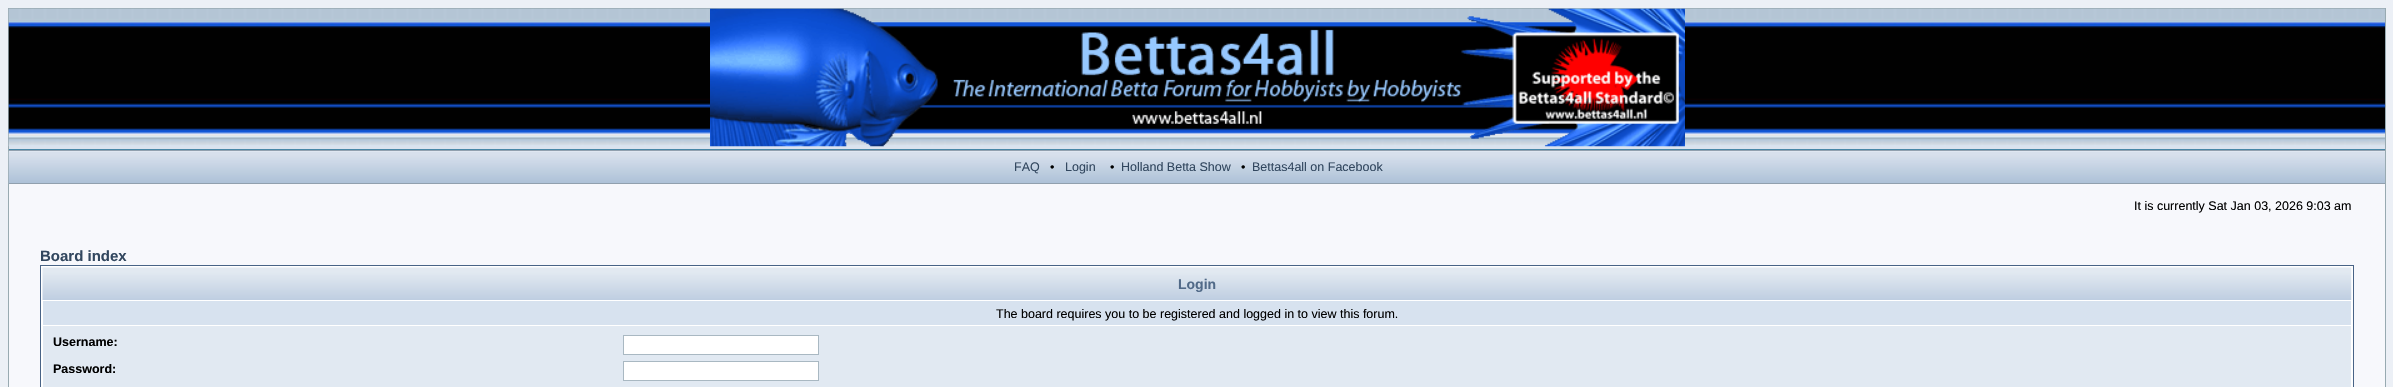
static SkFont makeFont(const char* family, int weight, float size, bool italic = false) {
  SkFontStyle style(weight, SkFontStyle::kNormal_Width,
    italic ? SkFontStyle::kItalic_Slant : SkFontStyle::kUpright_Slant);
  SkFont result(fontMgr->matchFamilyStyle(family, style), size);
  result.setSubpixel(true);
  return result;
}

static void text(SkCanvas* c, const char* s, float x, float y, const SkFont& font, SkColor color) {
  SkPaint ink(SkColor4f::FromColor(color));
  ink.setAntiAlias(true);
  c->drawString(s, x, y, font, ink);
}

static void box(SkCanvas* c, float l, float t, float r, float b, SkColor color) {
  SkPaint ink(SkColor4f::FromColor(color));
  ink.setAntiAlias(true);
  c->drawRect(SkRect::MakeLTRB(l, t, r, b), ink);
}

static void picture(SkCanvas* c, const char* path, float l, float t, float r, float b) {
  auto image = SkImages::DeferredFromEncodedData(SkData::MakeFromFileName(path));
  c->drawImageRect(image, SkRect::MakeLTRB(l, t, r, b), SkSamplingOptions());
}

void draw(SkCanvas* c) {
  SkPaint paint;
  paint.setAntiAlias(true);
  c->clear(0xffecf0f6);
  box(c, 9, 151, 2385, 387, 0xfff7f8fc);
  paint.setStyle(SkPaint::kStroke_Style);
  paint.setStrokeWidth(1);
  paint.setColor(0xff98aab1);
  c->drawRect(SkRect::MakeLTRB(8.5f, 8.5f, 2385.5f, 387.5f), paint);
  box(c, 9, 149, 2385, 150, 0xff4787a7);
  box(c, 9, 146, 2385, 149, 0xffdbe3ee);
  picture(c, "img_01.png", 8, 8, 2385, 147);
  picture(c, "img_02.png", 710, 8, 1685, 147);
  picture(c, "img_03.png", 8, 151, 2385, 184);
  box(c, 9, 150, 2385, 151, 0xff91a0ae);
  box(c, 9, 183, 2385, 184, 0xff91a0ae);
  SkFont face1 = makeFont("Liberation Sans", 400, 12.5f);
  text(c, "FAQ", 1014, 171, face1, 0xff32475f);
  text(c, "•", 1050, 171, face1, 0xff000000);
  text(c, "Login", 1065, 171, face1, 0xff32475f);
  text(c, "•", 1110, 171, face1, 0xff000000);
  text(c, "Holland Betta Show", 1121, 171, face1, 0xff32475f);
  text(c, "•", 1241, 171, face1, 0xff000000);
  text(c, "Bettas4all on Facebook", 1252, 171, face1, 0xff32475f);
  text(c, "It is currently Sat Jan 03, 2026 9:03 am", 2134, 210, face1, 0xff000000);
  SkFont face2 = makeFont("Liberation Sans", 700, 15);
  text(c, "Board index", 40, 261, face2, 0xff32475f);
  paint.setStyle(SkPaint::kFill_Style);
  paint.setColor(0xffffffff);
  c->drawRect(SkRect::MakeLTRB(40.5f, 265.5f, 2353.5f, 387.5f), paint);
  paint.setStyle(SkPaint::kStroke_Style);
  paint.setColor(0xff486386);
  c->drawRect(SkRect::MakeLTRB(40.5f, 265.5f, 2353.5f, 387.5f), paint);
  picture(c, "img_04.png", 42, 267, 2352, 300);
  SkFont face3 = makeFont("Liberation Sans", 700, 14);
  text(c, "Login", 1178, 289, face3, 0xff516a88);
  box(c, 43, 301, 2351, 325, 0xffd7e2ef);
  text(c, "The board requires you to be registered and logged in to view this forum.", 996, 318, face1, 0xff000000);
  box(c, 43, 326, 2351, 387, 0xffe1e9f2);
  SkFont face4 = makeFont("Liberation Sans", 700, 12.5f);
  text(c, "Username:", 53, 346, face4, 0xff000000);
  paint.setStyle(SkPaint::kFill_Style);
  paint.setColor(0xffffffff);
  c->drawRect(SkRect::MakeLTRB(623.5f, 335.5f, 818.5f, 354.5f), paint);
  paint.setStyle(SkPaint::kStroke_Style);
  paint.setColor(0xffa9b8c2);
  c->drawRect(SkRect::MakeLTRB(623.5f, 335.5f, 818.5f, 354.5f), paint);
  text(c, "Password:", 53, 373, face4, 0xff000000);
  paint.setStyle(SkPaint::kFill_Style);
  paint.setColor(0xffffffff);
  c->drawRect(SkRect::MakeLTRB(623.5f, 361.5f, 818.5f, 380.5f), paint);
  paint.setStyle(SkPaint::kStroke_Style);
  paint.setColor(0xffa9b8c2);
  c->drawRect(SkRect::MakeLTRB(623.5f, 361.5f, 818.5f, 380.5f), paint);
}
